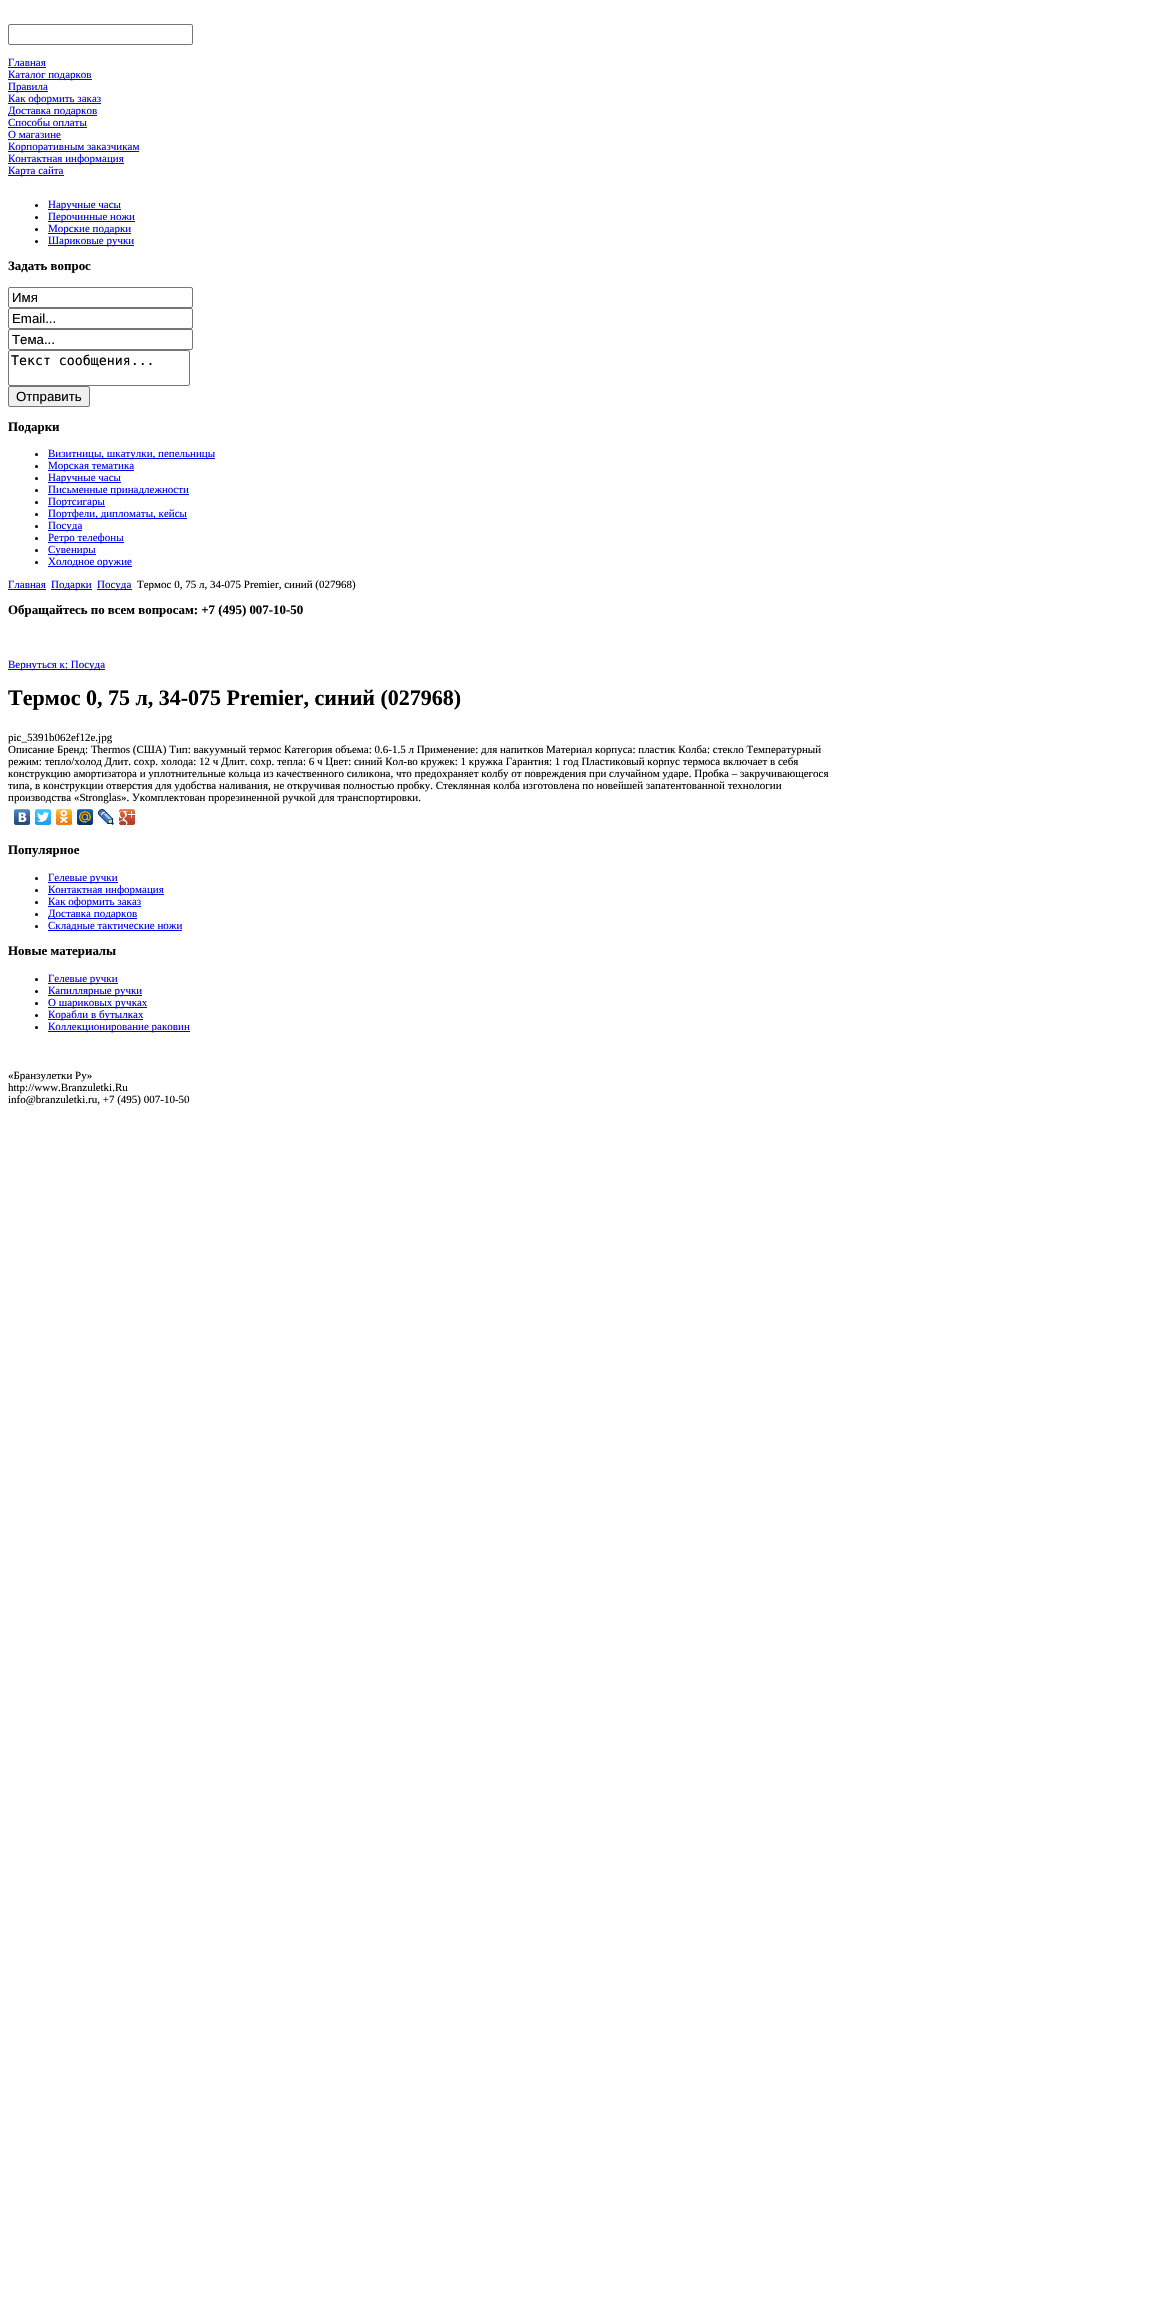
static SkFont makeFont(const char* family, int weight, float size, bool italic = false) {
  SkFontStyle style(weight, SkFontStyle::kNormal_Width,
    italic ? SkFontStyle::kItalic_Slant : SkFontStyle::kUpright_Slant);
  SkFont result(fontMgr->matchFamilyStyle(family, style), size);
  result.setSubpixel(true);
  return result;
}

static void text(SkCanvas* c, const char* s, float x, float y, const SkFont& font, SkColor color) {
  SkPaint ink(SkColor4f::FromColor(color));
  ink.setAntiAlias(true);
  c->drawString(s, x, y, font, ink);
}

static void box(SkCanvas* c, float l, float t, float r, float b, SkColor color) {
  SkPaint ink(SkColor4f::FromColor(color));
  ink.setAntiAlias(true);
  c->drawRect(SkRect::MakeLTRB(l, t, r, b), ink);
}

static void picture(SkCanvas* c, const char* path, float l, float t, float r, float b) {
  auto image = SkImages::DeferredFromEncodedData(SkData::MakeFromFileName(path));
  c->drawImageRect(image, SkRect::MakeLTRB(l, t, r, b), SkSamplingOptions());
}

void draw(SkCanvas* c) {
  SkPaint paint;
  paint.setAntiAlias(true);
  c->clear(0xffffffff);
  paint.setStyle(SkPaint::kStroke_Style);
  paint.setStrokeWidth(1);
  paint.setColor(0xff767676);
  c->drawRoundRect(SkRect::MakeLTRB(8.5f, 24.5f, 192.5f, 44.5f), 1.5f, 1.5f, paint);
  SkFont face1 = makeFont("Liberation Serif", 400, 11);
  text(c, "Главная", 8, 66, face1, 0xff0000ee);
  box(c, 8, 67, 46, 68, 0xff0000ee);
  box(c, 8, 79, 92, 80, 0xff0000ee);
  text(c, "Каталог подарков", 8, 78, face1, 0xff0000ee);
  box(c, 8, 91, 48, 92, 0xff0000ee);
  text(c, "Правила", 8, 90, face1, 0xff0000ee);
  box(c, 8, 103, 101, 104, 0xff0000ee);
  text(c, "Как оформить заказ", 8, 102, face1, 0xff0000ee);
  box(c, 8, 115, 97, 116, 0xff0000ee);
  text(c, "Доставка подарков", 8, 114, face1, 0xff0000ee);
  text(c, "Способы оплаты", 8, 126, face1, 0xff0000ee);
  box(c, 8, 127, 87, 128, 0xff0000ee);
  text(c, "О магазине", 8, 138, face1, 0xff0000ee);
  box(c, 8, 139, 61, 140, 0xff0000ee);
  box(c, 8, 151, 139, 152, 0xff0000ee);
  text(c, "Корпоративным заказчикам", 8, 150, face1, 0xff0000ee);
  box(c, 8, 163, 124, 164, 0xff0000ee);
  text(c, "Контактная информация", 8, 162, face1, 0xff0000ee);
  box(c, 8, 175, 64, 176, 0xff0000ee);
  text(c, "Карта сайта", 8, 174, face1, 0xff0000ee);
  paint.setStyle(SkPaint::kFill_Style);
  paint.setColor(0xff000000);
  c->drawCircle(36.5f, 205.5f, 1.5f, paint);
  box(c, 48, 209, 121, 210, 0xff0000ee);
  text(c, "Наручные часы", 48, 208, face1, 0xff0000ee);
  c->drawCircle(36.5f, 217.5f, 1.5f, paint);
  box(c, 48, 221, 135, 222, 0xff0000ee);
  text(c, "Перочинные ножи", 48, 220, face1, 0xff0000ee);
  c->drawCircle(36.5f, 229.5f, 1.5f, paint);
  box(c, 48, 233, 131, 234, 0xff0000ee);
  text(c, "Морские подарки", 48, 232, face1, 0xff0000ee);
  c->drawCircle(36.5f, 241.5f, 1.5f, paint);
  box(c, 48, 245, 134, 246, 0xff0000ee);
  text(c, "Шариковые ручки", 48, 244, face1, 0xff0000ee);
  SkFont face2 = makeFont("Liberation Serif", 700, 12.9f);
  text(c, "Задать вопрос", 8, 270, face2, 0xff000000);
  paint.setStyle(SkPaint::kStroke_Style);
  paint.setColor(0xff767676);
  c->drawRoundRect(SkRect::MakeLTRB(8.5f, 287.5f, 192.5f, 307.5f), 1.5f, 1.5f, paint);
  SkFont face3 = makeFont("Liberation Sans", 400, 13.25f);
  text(c, "Имя", 12, 302, face3, 0xff000000);
  c->drawRoundRect(SkRect::MakeLTRB(8.5f, 308.5f, 192.5f, 328.5f), 1.5f, 1.5f, paint);
  text(c, "Email...", 12, 323, face3, 0xff000000);
  c->drawRoundRect(SkRect::MakeLTRB(8.5f, 329.5f, 192.5f, 349.5f), 1.5f, 1.5f, paint);
  text(c, "Тема...", 12, 344, face3, 0xff000000);
  c->drawRoundRect(SkRect::MakeLTRB(8.5f, 350.5f, 189.5f, 385.5f), 1.5f, 1.5f, paint);
  SkFont face4 = makeFont("DejaVu Sans Mono", 400, 13.25f);
  text(c, "Текст сообщения...", 11, 365, face4, 0xff000000);
  paint.setStyle(SkPaint::kFill_Style);
  paint.setColor(0xffefefef);
  c->drawRoundRect(SkRect::MakeLTRB(8.5f, 386.5f, 89.5f, 406.5f), 1.5f, 1.5f, paint);
  paint.setStyle(SkPaint::kStroke_Style);
  paint.setColor(0xff767676);
  c->drawRoundRect(SkRect::MakeLTRB(8.5f, 386.5f, 89.5f, 406.5f), 1.5f, 1.5f, paint);
  text(c, "Отправить", 16, 401, face3, 0xff000000);
  text(c, "Подарки", 8, 431, face2, 0xff000000);
  paint.setStyle(SkPaint::kFill_Style);
  paint.setColor(0xff000000);
  c->drawCircle(36.5f, 454.5f, 1.5f, paint);
  box(c, 48, 458, 215, 459, 0xff0000ee);
  text(c, "Визитницы, шкатулки, пепельницы", 48, 457, face1, 0xff0000ee);
  c->drawCircle(36.5f, 466.5f, 1.5f, paint);
  box(c, 48, 470, 134, 471, 0xff0000ee);
  text(c, "Морская тематика", 48, 469, face1, 0xff0000ee);
  c->drawCircle(36.5f, 478.5f, 1.5f, paint);
  box(c, 48, 482, 121, 483, 0xff0000ee);
  text(c, "Наручные часы", 48, 481, face1, 0xff0000ee);
  c->drawCircle(36.5f, 490.5f, 1.5f, paint);
  box(c, 48, 494, 189, 495, 0xff0000ee);
  text(c, "Письменные принадлежности", 48, 493, face1, 0xff0000ee);
  c->drawCircle(36.5f, 502.5f, 1.5f, paint);
  box(c, 48, 506, 105, 507, 0xff0000ee);
  text(c, "Портсигары", 48, 505, face1, 0xff0000ee);
  c->drawCircle(36.5f, 514.5f, 1.5f, paint);
  box(c, 48, 518, 187, 519, 0xff0000ee);
  text(c, "Портфели, дипломаты, кейсы", 48, 517, face1, 0xff0000ee);
  c->drawCircle(36.5f, 526.5f, 1.5f, paint);
  box(c, 48, 530, 82, 531, 0xff0000ee);
  text(c, "Посуда", 48, 529, face1, 0xff0000ee);
  c->drawCircle(36.5f, 538.5f, 1.5f, paint);
  box(c, 48, 542, 124, 543, 0xff0000ee);
  text(c, "Ретро телефоны", 48, 541, face1, 0xff0000ee);
  c->drawCircle(36.5f, 550.5f, 1.5f, paint);
  box(c, 48, 554, 96, 555, 0xff0000ee);
  text(c, "Сувениры", 48, 553, face1, 0xff0000ee);
  c->drawCircle(36.5f, 562.5f, 1.5f, paint);
  box(c, 48, 566, 132, 567, 0xff0000ee);
  text(c, "Холодное оружие", 48, 565, face1, 0xff0000ee);
  text(c, "Главная", 8, 588, face1, 0xff0000ee);
  box(c, 8, 589, 46, 590, 0xff0000ee);
  box(c, 51, 589, 92, 590, 0xff0000ee);
  text(c, "Подарки", 51, 588, face1, 0xff0000ee);
  box(c, 97, 589, 132, 590, 0xff0000ee);
  text(c, "Посуда", 97, 588, face1, 0xff0000ee);
  text(c, "Термос 0, 75 л, 34-075 Premier, синий (027968)", 137, 588, face1, 0xff000000);
  text(c, "Обращайтесь по всем вопросам: +7 (495) 007-10-50", 8, 614, face2, 0xff000000);
  box(c, 8, 669, 105, 670, 0xff0000ee);
  text(c, "Вернуться к: Посуда", 8, 668, face1, 0xff0000ee);
  SkFont face5 = makeFont("Liberation Serif", 700, 22);
  text(c, "Термос 0, 75 л, 34-075 Premier, синий (027968)", 8, 705, face5, 0xff000000);
  text(c, "pic_5391b062ef12e.jpg", 8, 741, face1, 0xff000000);
  text(c, "Описание Бренд: Thermos (США) Тип: вакуумный термос Категория объема: 0.6-1.5 л Применение: для напитков Материал корпуса: пластик Колба: стекло Температурный", 8, 753, face1, 0xff000000);
  text(c, "режим: тепло/холод Длит. сохр. холода: 12 ч Длит. сохр. тепла: 6 ч Цвет: синий Кол-во кружек: 1 кружка Гарантия: 1 год Пластиковый корпус термоса включает в себя", 8, 765, face1, 0xff000000);
  text(c, "конструкцию амортизатора и уплотнительные кольца из качественного силикона, что предохраняет колбу от повреждения при случайном ударе. Пробка – закручивающегося", 8, 777, face1, 0xff000000);
  text(c, "типа, в конструкции отверстия для удобства наливания, не откручивая полностью пробку. Стеклянная колба изготовлена по новейшей запатентованной технологии", 8, 789, face1, 0xff000000);
  text(c, "производства «Stronglas». Укомплектован прорезиненной ручкой для транспортировки.", 8, 801, face1, 0xff000000);
  picture(c, "img_01.png", 14, 809, 30, 825);
  picture(c, "img_02.png", 35, 809, 51, 825);
  picture(c, "img_03.png", 56, 809, 72, 825);
  picture(c, "img_04.png", 77, 809, 93, 825);
  picture(c, "img_05.png", 98, 809, 114, 825);
  picture(c, "img_06.png", 119, 809, 135, 825);
  text(c, "Популярное", 8, 854, face2, 0xff000000);
  c->drawCircle(36.5f, 878.5f, 1.5f, paint);
  box(c, 48, 882, 118, 883, 0xff0000ee);
  text(c, "Гелевые ручки", 48, 881, face1, 0xff0000ee);
  c->drawCircle(36.5f, 890.5f, 1.5f, paint);
  box(c, 48, 894, 164, 895, 0xff0000ee);
  text(c, "Контактная информация", 48, 893, face1, 0xff0000ee);
  c->drawCircle(36.5f, 902.5f, 1.5f, paint);
  box(c, 48, 906, 141, 907, 0xff0000ee);
  text(c, "Как оформить заказ", 48, 905, face1, 0xff0000ee);
  c->drawCircle(36.5f, 914.5f, 1.5f, paint);
  box(c, 48, 918, 137, 919, 0xff0000ee);
  text(c, "Доставка подарков", 48, 917, face1, 0xff0000ee);
  c->drawCircle(36.5f, 926.5f, 1.5f, paint);
  box(c, 48, 930, 182, 931, 0xff0000ee);
  text(c, "Складные тактические ножи", 48, 929, face1, 0xff0000ee);
  text(c, "Новые материалы", 8, 955, face2, 0xff000000);
  c->drawCircle(36.5f, 979.5f, 1.5f, paint);
  box(c, 48, 983, 118, 984, 0xff0000ee);
  text(c, "Гелевые ручки", 48, 982, face1, 0xff0000ee);
  c->drawCircle(36.5f, 991.5f, 1.5f, paint);
  box(c, 48, 995, 142, 996, 0xff0000ee);
  text(c, "Капиллярные ручки", 48, 994, face1, 0xff0000ee);
  c->drawCircle(36.5f, 1003.5f, 1.5f, paint);
  box(c, 48, 1007, 147, 1008, 0xff0000ee);
  text(c, "О шариковых ручках", 48, 1006, face1, 0xff0000ee);
  c->drawCircle(36.5f, 1015.5f, 1.5f, paint);
  box(c, 48, 1019, 143, 1020, 0xff0000ee);
  text(c, "Корабли в бутылках", 48, 1018, face1, 0xff0000ee);
  c->drawCircle(36.5f, 1027.5f, 1.5f, paint);
  box(c, 48, 1031, 190, 1032, 0xff0000ee);
  text(c, "Коллекционирование раковин", 48, 1030, face1, 0xff0000ee);
  text(c, "«Бранзулетки Ру»", 8, 1079, face1, 0xff000000);
  text(c, "http://www.Branzuletki.Ru", 8, 1091, face1, 0xff000000);
  text(c, "info@branzuletki.ru, +7 (495) 007-10-50", 8, 1103, face1, 0xff000000);
}
